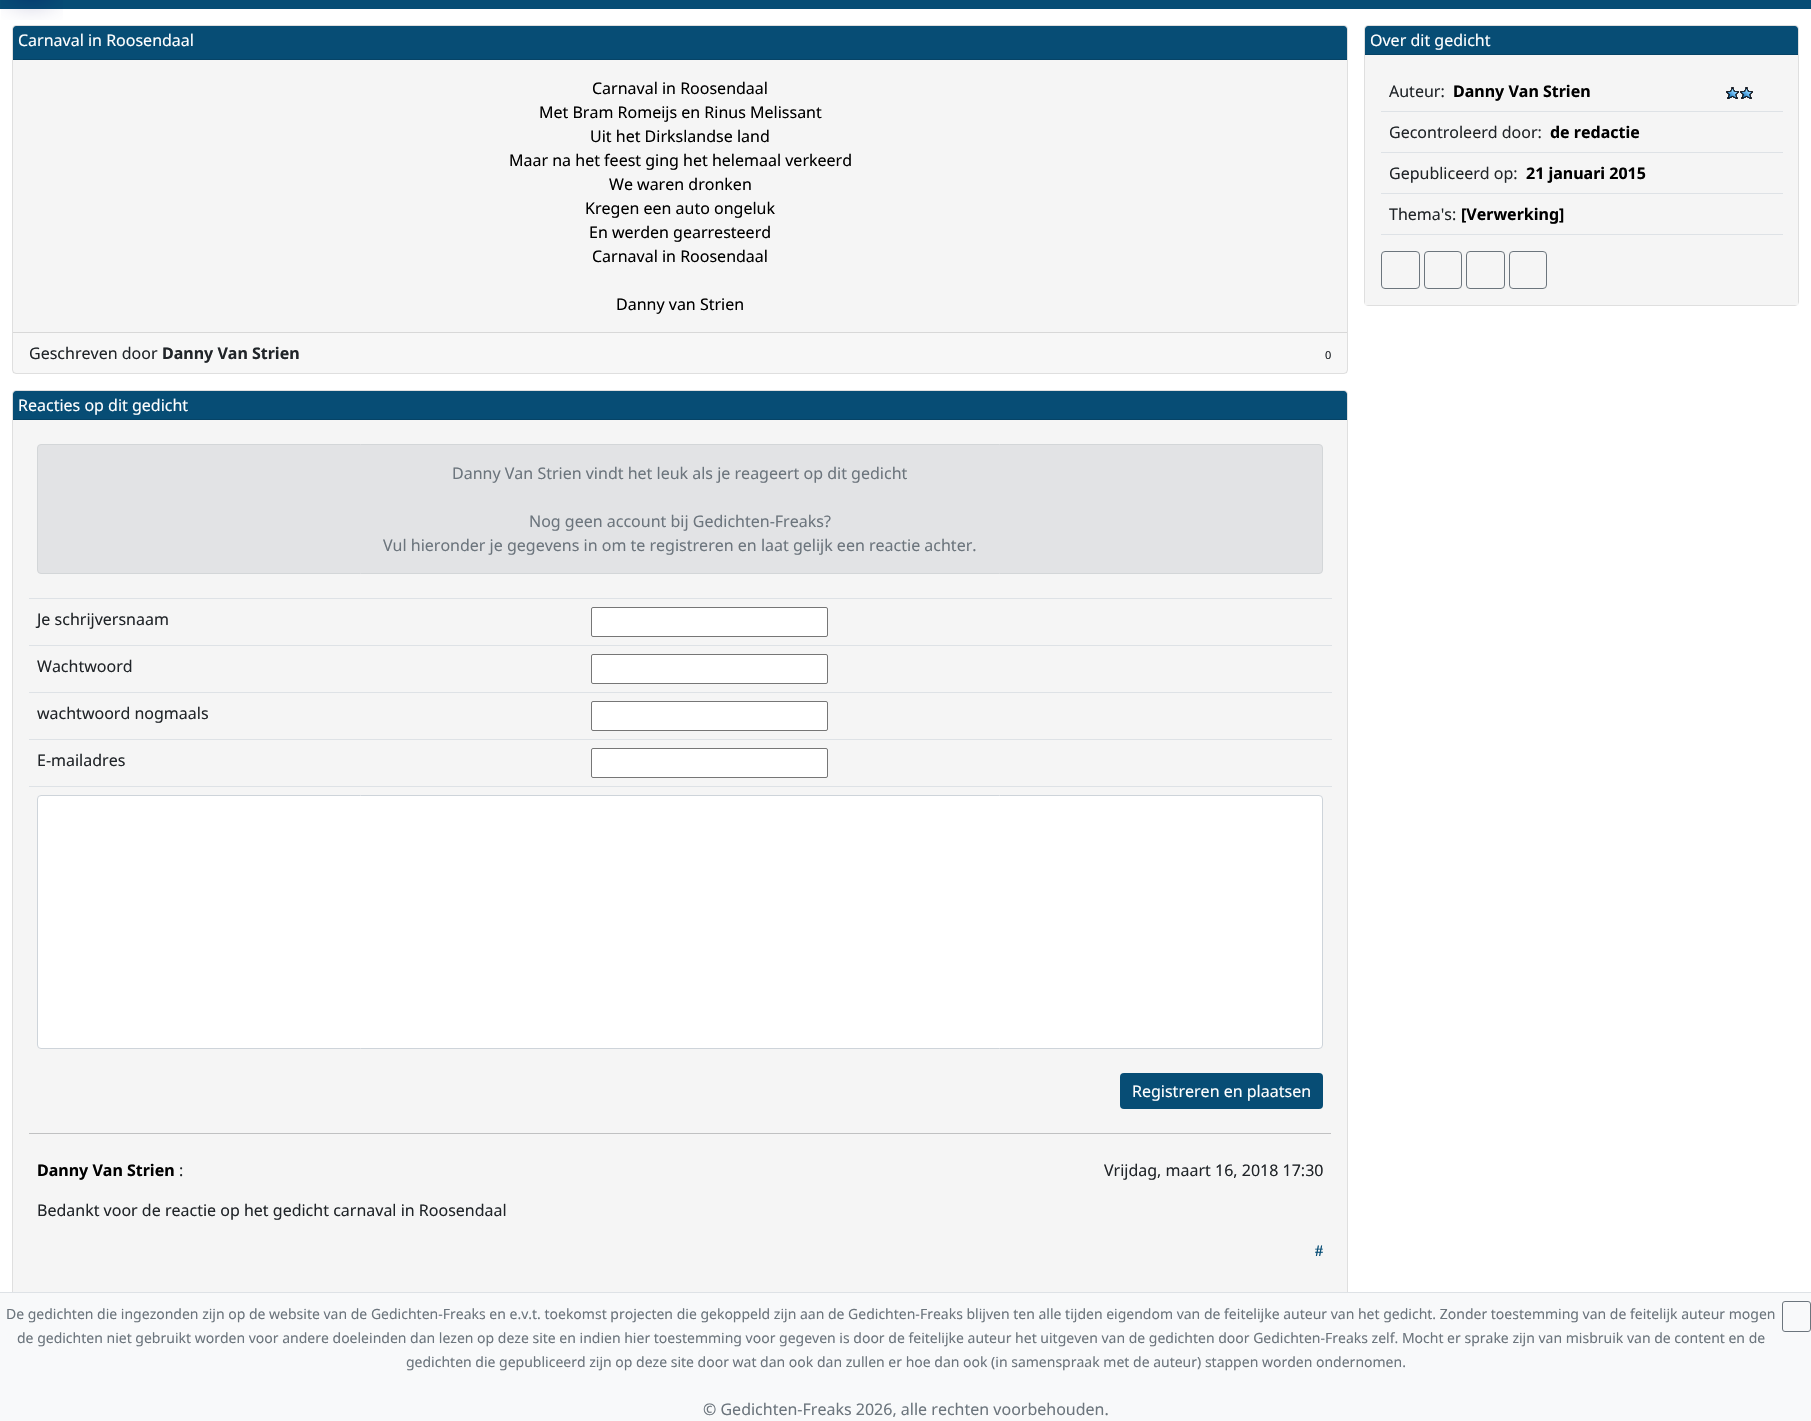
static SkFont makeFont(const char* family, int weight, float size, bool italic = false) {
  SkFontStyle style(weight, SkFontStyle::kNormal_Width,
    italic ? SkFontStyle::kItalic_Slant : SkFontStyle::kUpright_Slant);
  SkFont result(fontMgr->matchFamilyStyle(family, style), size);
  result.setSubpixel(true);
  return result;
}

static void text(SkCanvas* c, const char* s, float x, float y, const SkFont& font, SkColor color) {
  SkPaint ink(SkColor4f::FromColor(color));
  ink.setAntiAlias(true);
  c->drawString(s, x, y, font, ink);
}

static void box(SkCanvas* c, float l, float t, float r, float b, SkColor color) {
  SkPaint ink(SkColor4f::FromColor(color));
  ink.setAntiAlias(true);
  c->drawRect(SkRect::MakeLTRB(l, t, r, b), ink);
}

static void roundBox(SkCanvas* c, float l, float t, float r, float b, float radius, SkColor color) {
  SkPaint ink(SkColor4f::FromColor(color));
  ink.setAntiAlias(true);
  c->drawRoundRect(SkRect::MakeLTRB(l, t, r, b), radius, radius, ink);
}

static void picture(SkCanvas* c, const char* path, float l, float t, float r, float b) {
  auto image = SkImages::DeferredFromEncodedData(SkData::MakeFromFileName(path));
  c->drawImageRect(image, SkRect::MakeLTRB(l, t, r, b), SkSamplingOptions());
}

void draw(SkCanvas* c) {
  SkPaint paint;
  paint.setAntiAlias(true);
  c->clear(0xffffffff);
  box(c, 0, 0, 1811, 9, 0xff074d75);
  picture(c, "img_01.png", 1, 0, 63, 20);
  paint.setStyle(SkPaint::kStroke_Style);
  paint.setStrokeWidth(1);
  paint.setColor(0xffdfdfdf);
  c->drawRoundRect(SkRect::MakeLTRB(12.5f, 25.5f, 1347.5f, 373.5f), 3.5f, 3.5f, paint);
  paint.setStyle(SkPaint::kFill_Style);
  paint.setColor(0xff074d75);
  c->drawPath(SkPathBuilder().moveTo(16, 26).lineTo(1344, 26).cubicTo(1345.5f, 26, 1347, 27.5f, 1347, 29).lineTo(1347, 60).lineTo(13, 60).lineTo(13, 29).cubicTo(13, 27.5f, 14.5f, 26, 16, 26).close().detach(), paint);
  box(c, 13, 59, 1347, 60, 0xff064366);
  SkFont face1 = makeFont("Noto Sans", 400, 16);
  text(c, "Carnaval in Roosendaal", 18, 46, face1, 0xffffffff);
  box(c, 13, 60, 1347, 332, 0xfff5f5f5);
  text(c, "Carnaval in Roosendaal", 592, 94, face1, 0xff000000);
  text(c, "Met Bram Romeijs en Rinus Melissant", 539, 118, face1, 0xff000000);
  text(c, "Uit het Dirkslandse land", 590, 142, face1, 0xff000000);
  text(c, "Maar na het feest ging het helemaal verkeerd", 509, 166, face1, 0xff000000);
  text(c, "We waren dronken", 609, 190, face1, 0xff000000);
  text(c, "Kregen een auto ongeluk", 585, 214, face1, 0xff000000);
  text(c, "En werden gearresteerd", 589, 238, face1, 0xff000000);
  text(c, "Carnaval in Roosendaal", 592, 262, face1, 0xff000000);
  text(c, "Danny van Strien", 616, 310, face1, 0xff000000);
  box(c, 13, 333, 1347, 373, 0x08000000);
  box(c, 13, 332, 1347, 333, 0xffd8d8d8);
  text(c, "Geschreven door", 29, 359, face1, 0xff212529);
  SkFont face2 = makeFont("Noto Sans", 700, 16);
  text(c, "Danny Van Strien", 162, 359, face2, 0xff212529);
  SkFont face3 = makeFont("Noto Sans", 400, 11);
  text(c, "0", 1325, 359, face3, 0xff212529);
  paint.setStyle(SkPaint::kStroke_Style);
  paint.setColor(0xffdfdfdf);
  c->drawRoundRect(SkRect::MakeLTRB(12.5f, 390.5f, 1347.5f, 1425.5f), 3.5f, 3.5f, paint);
  paint.setStyle(SkPaint::kFill_Style);
  paint.setColor(0xff074d75);
  c->drawPath(SkPathBuilder().moveTo(16, 391).lineTo(1344, 391).cubicTo(1345.5f, 391, 1347, 392.5f, 1347, 394).lineTo(1347, 420).lineTo(13, 420).lineTo(13, 394).cubicTo(13, 392.5f, 14.5f, 391, 16, 391).close().detach(), paint);
  box(c, 13, 419, 1347, 420, 0xff064366);
  text(c, "Reacties op dit gedicht", 18, 411, face1, 0xffffffff);
  box(c, 13, 420, 1347, 1292, 0xfff5f5f5);
  box(c, 29, 598, 1332, 599, 0xffdee2e6);
  paint.setColor(0xffe2e3e5);
  c->drawRoundRect(SkRect::MakeLTRB(37.5f, 444.5f, 1322.5f, 573.5f), 3.5f, 3.5f, paint);
  paint.setStyle(SkPaint::kStroke_Style);
  paint.setColor(0xffd3d6d8);
  c->drawRoundRect(SkRect::MakeLTRB(37.5f, 444.5f, 1322.5f, 573.5f), 3.5f, 3.5f, paint);
  text(c, "Danny Van Strien vindt het leuk als je reageert op dit gedicht", 452, 479, face1, 0xff6c757d);
  text(c, "Nog geen account bij Gedichten-Freaks?", 529, 527, face1, 0xff6c757d);
  text(c, "Vul hieronder je gegevens in om te registreren en laat gelijk een reactie achter.", 383, 551, face1, 0xff6c757d);
  box(c, 29, 645, 1332, 646, 0xffdee2e6);
  paint.setStyle(SkPaint::kFill_Style);
  paint.setColor(0xffffffff);
  c->drawRoundRect(SkRect::MakeLTRB(591.5f, 607.5f, 827.5f, 636.5f), 1.5f, 1.5f, paint);
  paint.setStyle(SkPaint::kStroke_Style);
  paint.setColor(0xff767676);
  c->drawRoundRect(SkRect::MakeLTRB(591.5f, 607.5f, 827.5f, 636.5f), 1.5f, 1.5f, paint);
  text(c, "Je schrijversnaam", 37, 625, face1, 0xff212529);
  box(c, 29, 692, 1332, 693, 0xffdee2e6);
  paint.setStyle(SkPaint::kFill_Style);
  paint.setColor(0xffffffff);
  c->drawRoundRect(SkRect::MakeLTRB(591.5f, 654.5f, 827.5f, 683.5f), 1.5f, 1.5f, paint);
  paint.setStyle(SkPaint::kStroke_Style);
  paint.setColor(0xff767676);
  c->drawRoundRect(SkRect::MakeLTRB(591.5f, 654.5f, 827.5f, 683.5f), 1.5f, 1.5f, paint);
  text(c, "Wachtwoord", 37, 672, face1, 0xff212529);
  box(c, 29, 739, 1332, 740, 0xffdee2e6);
  paint.setStyle(SkPaint::kFill_Style);
  paint.setColor(0xffffffff);
  c->drawRoundRect(SkRect::MakeLTRB(591.5f, 701.5f, 827.5f, 730.5f), 1.5f, 1.5f, paint);
  paint.setStyle(SkPaint::kStroke_Style);
  paint.setColor(0xff767676);
  c->drawRoundRect(SkRect::MakeLTRB(591.5f, 701.5f, 827.5f, 730.5f), 1.5f, 1.5f, paint);
  text(c, "wachtwoord nogmaals", 37, 719, face1, 0xff212529);
  box(c, 29, 786, 1332, 787, 0xffdee2e6);
  paint.setStyle(SkPaint::kFill_Style);
  paint.setColor(0xffffffff);
  c->drawRoundRect(SkRect::MakeLTRB(591.5f, 748.5f, 827.5f, 777.5f), 1.5f, 1.5f, paint);
  paint.setStyle(SkPaint::kStroke_Style);
  paint.setColor(0xff767676);
  c->drawRoundRect(SkRect::MakeLTRB(591.5f, 748.5f, 827.5f, 777.5f), 1.5f, 1.5f, paint);
  text(c, "E-mailadres", 37, 766, face1, 0xff212529);
  paint.setStyle(SkPaint::kFill_Style);
  paint.setColor(0xffffffff);
  c->drawRoundRect(SkRect::MakeLTRB(37.5f, 795.5f, 1322.5f, 1048.5f), 3.5f, 3.5f, paint);
  paint.setStyle(SkPaint::kStroke_Style);
  paint.setColor(0xffced4da);
  c->drawRoundRect(SkRect::MakeLTRB(37.5f, 795.5f, 1322.5f, 1048.5f), 3.5f, 3.5f, paint);
  roundBox(c, 1120, 1073, 1323, 1109, 4, 0xff074d75);
  text(c, "Registreren en plaatsen", 1132, 1097, face1, 0xffffffff);
  box(c, 29, 1133, 1331, 1134, 0xffc0c1c2);
  text(c, "Danny Van Strien", 37, 1176, face2, 0xff000000);
  text(c, ":", 179, 1176, face1, 0xff212529);
  text(c, "Vrijdag, maart 16, 2018 17:30", 1104, 1176, face1, 0xff212529);
  text(c, "Bedankt voor de reactie op het gedicht carnaval in Roosendaal", 37, 1216, face1, 0xff212529);
  SkFont face4 = makeFont("Liberation Serif", 700, 16);
  text(c, "#", 1315, 1256, face4, 0xff074d75);
  paint.setColor(0xffdfdfdf);
  c->drawRoundRect(SkRect::MakeLTRB(1364.5f, 25.5f, 1798.5f, 305.5f), 3.5f, 3.5f, paint);
  paint.setStyle(SkPaint::kFill_Style);
  paint.setColor(0xff074d75);
  c->drawPath(SkPathBuilder().moveTo(1368, 26).lineTo(1795, 26).cubicTo(1796.5f, 26, 1798, 27.5f, 1798, 29).lineTo(1798, 55).lineTo(1365, 55).lineTo(1365, 29).cubicTo(1365, 27.5f, 1366.5f, 26, 1368, 26).close().detach(), paint);
  box(c, 1365, 54, 1798, 55, 0xff064366);
  text(c, "Over dit gedicht", 1370, 46, face1, 0xffffffff);
  box(c, 1365, 55, 1798, 305, 0xfff5f5f5);
  text(c, "Auteur:", 1389, 97, face1, 0xff212529);
  text(c, "Danny Van Strien", 1453, 97, face2, 0xff000000);
  box(c, 1381, 111, 1783, 112, 0xffdee2e6);
  picture(c, "img_02.png", 1726, 87, 1739, 99);
  picture(c, "img_02.png", 1740, 87, 1753, 99);
  box(c, 1381, 152, 1783, 153, 0xffdee2e6);
  text(c, "Gecontroleerd door:", 1389, 138, face1, 0xff212529);
  text(c, "de redactie", 1550, 138, face2, 0xff000000);
  box(c, 1381, 193, 1783, 194, 0xffdee2e6);
  text(c, "Gepubliceerd op:", 1389, 179, face1, 0xff212529);
  text(c, "21 januari 2015", 1526, 179, face2, 0xff000000);
  box(c, 1381, 234, 1783, 235, 0xffdee2e6);
  text(c, "Thema's:", 1389, 220, face1, 0xff212529);
  text(c, "[Verwerking]", 1461, 220, face2, 0xff000000);
  paint.setStyle(SkPaint::kStroke_Style);
  paint.setColor(0xff6c757d);
  c->drawRoundRect(SkRect::MakeLTRB(1381.5f, 251.5f, 1419.5f, 288.5f), 3.5f, 3.5f, paint);
  c->drawRoundRect(SkRect::MakeLTRB(1424.5f, 251.5f, 1461.5f, 288.5f), 3.5f, 3.5f, paint);
  c->drawRoundRect(SkRect::MakeLTRB(1466.5f, 251.5f, 1504.5f, 288.5f), 3.5f, 3.5f, paint);
  c->drawRoundRect(SkRect::MakeLTRB(1509.5f, 251.5f, 1546.5f, 288.5f), 3.5f, 3.5f, paint);
  box(c, 0, 1293, 1811, 1421, 0xfff8f9fa);
  box(c, 0, 1292, 1811, 1293, 0xffdee2e6);
  SkFont face5 = makeFont("Noto Sans", 400, 14);
  text(c, "De gedichten die ingezonden zijn op de website van de Gedichten-Freaks en e.v.t. toekomst projecten die gekoppeld zijn aan de Gedichten-Freaks blijven ten alle tijden eigendom van de feitelijke auteur van het gedicht. Zonder toestemming van de feitelijk auteur mogen", 6, 1319, face5, 0xff6c757d);
  c->drawRoundRect(SkRect::MakeLTRB(1782.5f, 1301.5f, 1810.5f, 1331.5f), 2.5f, 2.5f, paint);
  text(c, "de gedichten niet gebruikt worden voor andere doeleinden dan lezen op deze site en indien hier toestemming voor gegeven is door de feitelijke auteur het uitgeven van de gedichten door Gedichten-Freaks zelf. Mocht er sprake zijn van misbruik van de content en de", 17, 1343, face5, 0xff6c757d);
  text(c, "gedichten die gepubliceerd zijn op deze site door wat dan ook dan zullen er hoe dan ook (in samenspraak met de auteur) stappen worden ondernomen.", 406, 1367, face5, 0xff6c757d);
  text(c, "© Gedichten-Freaks 2026, alle rechten voorbehouden.", 703, 1415, face1, 0xff6c757d);
}
